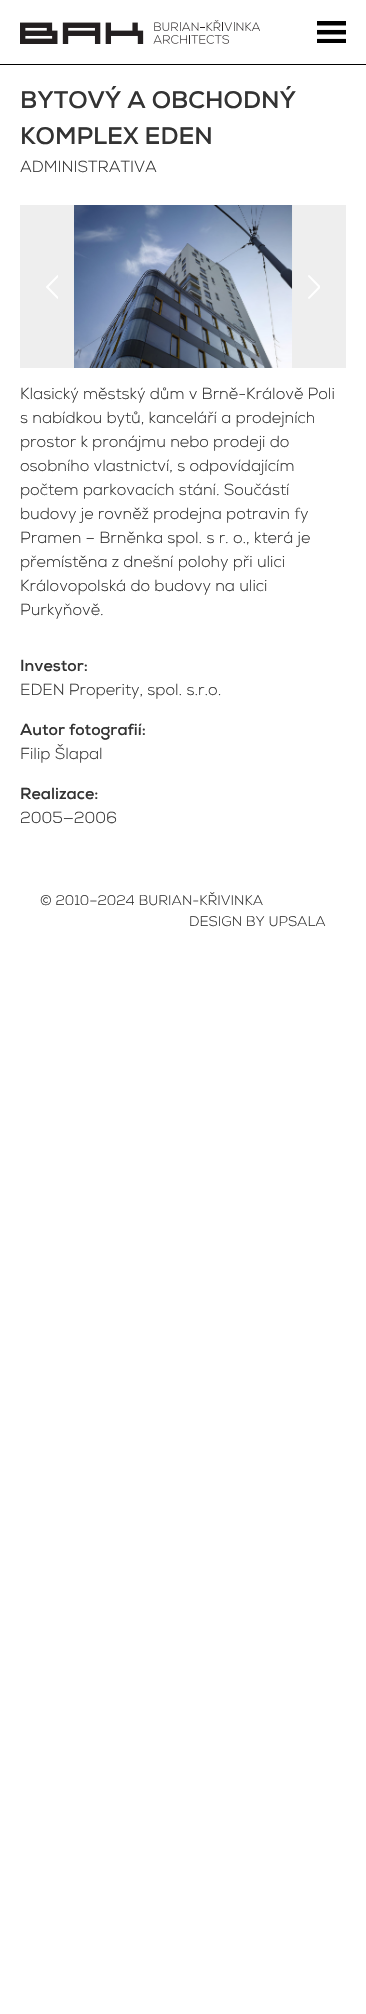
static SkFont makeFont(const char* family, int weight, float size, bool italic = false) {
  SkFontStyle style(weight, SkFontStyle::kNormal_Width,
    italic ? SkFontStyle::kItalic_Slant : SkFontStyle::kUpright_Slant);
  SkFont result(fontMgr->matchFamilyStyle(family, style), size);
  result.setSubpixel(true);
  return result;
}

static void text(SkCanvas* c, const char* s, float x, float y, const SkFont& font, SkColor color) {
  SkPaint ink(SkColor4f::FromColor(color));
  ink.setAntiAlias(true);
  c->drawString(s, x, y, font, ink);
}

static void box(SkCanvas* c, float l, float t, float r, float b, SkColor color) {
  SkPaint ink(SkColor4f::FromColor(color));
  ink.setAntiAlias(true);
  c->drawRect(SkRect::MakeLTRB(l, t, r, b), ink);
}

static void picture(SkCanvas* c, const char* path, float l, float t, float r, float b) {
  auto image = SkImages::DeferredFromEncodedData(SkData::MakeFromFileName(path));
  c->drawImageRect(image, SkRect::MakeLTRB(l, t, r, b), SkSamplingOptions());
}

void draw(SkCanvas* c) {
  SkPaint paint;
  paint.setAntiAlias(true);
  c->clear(0xffffffff);
  box(c, 0, 64, 366, 65, 0xff000000);
  picture(c, "img_01.png", 20, 20, 260, 44);
  picture(c, "img_02.png", 317, 21, 346, 43);
  SkFont face1 = makeFont("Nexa", 700, 24);
  text(c, "BYTOVÝ A OBCHODNÝ", 20, 108, face1, 0xff333333);
  text(c, "KOMPLEX EDEN", 20, 144, face1, 0xff333333);
  SkFont face2 = makeFont("Nexa", 300, 16);
  text(c, "ADMINISTRATIVA", 20, 172, face2, 0xff333333);
  box(c, 20, 205, 346, 368, 0xffeeeeee);
  picture(c, "img_03.png", 46, 275, 58, 299);
  picture(c, "img_04.png", 74, 205, 293, 368);
  picture(c, "img_05.png", 308, 275, 320, 299);
  text(c, "Klasický městský dům v Brně-Králově Poli", 20, 399, face2, 0xff333333);
  text(c, "s nabídkou bytů, kanceláří a prodejních", 20, 423, face2, 0xff333333);
  text(c, "prostor k pronájmu nebo prodeji do", 20, 447, face2, 0xff333333);
  text(c, "osobního vlastnictví, s odpovídajícím", 20, 471, face2, 0xff333333);
  text(c, "počtem parkovacích stání. Součástí", 20, 495, face2, 0xff333333);
  text(c, "budovy je rovněž prodejna potravin fy", 20, 519, face2, 0xff333333);
  text(c, "Pramen – Brněnka spol. s r. o., která je", 20, 543, face2, 0xff333333);
  text(c, "přemístěna z dnešní polohy při ulici", 20, 567, face2, 0xff333333);
  text(c, "Královopolská do budovy na ulici", 20, 591, face2, 0xff333333);
  text(c, "Purkyňově.", 20, 615, face2, 0xff333333);
  SkFont face3 = makeFont("Nexa", 700, 16);
  text(c, "Investor:", 20, 671, face3, 0xff333333);
  text(c, "EDEN Properity, spol. s.r.o.", 20, 695, face2, 0xff333333);
  text(c, "Autor fotografií:", 20, 735, face3, 0xff333333);
  text(c, "Filip Šlapal", 20, 759, face2, 0xff333333);
  text(c, "Realizace:", 20, 799, face3, 0xff333333);
  text(c, "2005—2006", 20, 823, face2, 0xff333333);
  SkFont face4 = makeFont("Nexa", 300, 14);
  text(c, "© 2010–2024 BURIAN-KŘIVINKA", 40, 905, face4, 0xff333333);
  text(c, "DESIGN BY UPSALA", 189, 926, face4, 0xff333333);
}
